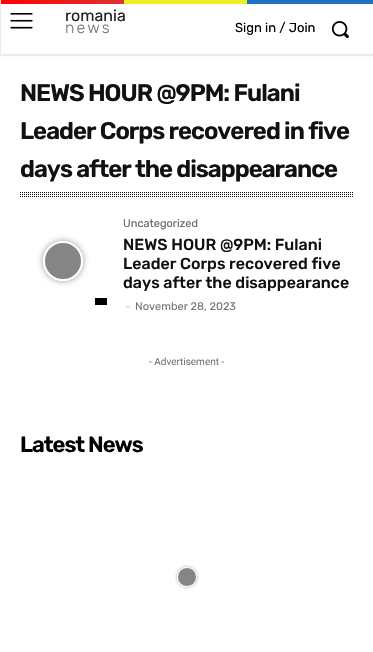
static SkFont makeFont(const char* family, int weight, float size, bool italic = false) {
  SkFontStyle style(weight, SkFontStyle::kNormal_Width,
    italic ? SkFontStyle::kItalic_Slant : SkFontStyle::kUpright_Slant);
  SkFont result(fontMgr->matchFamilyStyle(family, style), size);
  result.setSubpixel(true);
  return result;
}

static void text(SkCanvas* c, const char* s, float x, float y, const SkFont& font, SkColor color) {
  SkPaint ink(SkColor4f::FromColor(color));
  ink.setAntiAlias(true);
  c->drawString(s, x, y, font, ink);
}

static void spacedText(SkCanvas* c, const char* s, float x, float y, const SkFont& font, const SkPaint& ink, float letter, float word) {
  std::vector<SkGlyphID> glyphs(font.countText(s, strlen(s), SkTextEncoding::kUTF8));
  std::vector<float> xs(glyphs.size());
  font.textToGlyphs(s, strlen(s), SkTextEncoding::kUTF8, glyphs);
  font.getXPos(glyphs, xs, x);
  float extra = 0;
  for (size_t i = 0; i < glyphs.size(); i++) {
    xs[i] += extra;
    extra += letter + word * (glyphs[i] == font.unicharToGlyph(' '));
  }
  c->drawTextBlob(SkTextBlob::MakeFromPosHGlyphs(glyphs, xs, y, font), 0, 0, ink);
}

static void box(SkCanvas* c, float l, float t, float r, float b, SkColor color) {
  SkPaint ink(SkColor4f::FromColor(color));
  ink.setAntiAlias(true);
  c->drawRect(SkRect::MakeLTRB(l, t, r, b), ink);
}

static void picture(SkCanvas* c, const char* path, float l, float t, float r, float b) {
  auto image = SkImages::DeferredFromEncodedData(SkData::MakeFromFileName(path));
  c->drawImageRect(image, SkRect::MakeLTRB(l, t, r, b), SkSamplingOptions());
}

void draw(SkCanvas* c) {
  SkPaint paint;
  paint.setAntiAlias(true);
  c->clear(0xffffffff);
  {
    const SkColor colors[] = {0xff1e73be, 0xff1e73be, 0xffeeee22, 0xffeeee22, 0xffdd3333, 0xffff0000};
    const float stops[] = {0, 0.34f, 0.34f, 0.67f, 0.67f, 1};
    const SkPoint ends[] = {{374, 2}, {0.5f, 2}};
    paint.setShader(SkGradientShader::MakeLinear(ends, colors, stops, 6, SkTileMode::kClamp));
    paint.setAlpha(255);
  }
  c->drawRect(SkRect::MakeLTRB(1, 0, 373, 4), paint);
  picture(c, "img_01.png", 10, 13, 33, 29);
  picture(c, "img_02.png", 331, 21, 349, 39);
  c->save();
  c->clipPath(SkPathBuilder(SkPathFillType::kEvenOdd).moveTo(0, 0).lineTo(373, 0).lineTo(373, 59).lineTo(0, 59).close().moveTo(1, 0).lineTo(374, 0).lineTo(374, 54).lineTo(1, 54).close().detach(), true);
  paint.setShader(nullptr);
  paint.setColor(0x14000000);
  paint.setMaskFilter(SkMaskFilter::MakeBlur(kNormal_SkBlurStyle, 0.5f));
  c->drawRect(SkRect::MakeLTRB(0, 0, 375, 56), paint);
  paint.setMaskFilter(nullptr);
  c->restore();
  SkFont face1 = makeFont("Rubik", 400, 16);
  text(c, "romania", 65, 21, face1, 0xff222222);
  SkFont face2 = makeFont("Rubik", 300, 16);
  paint.setColor(0xff767676);
  spacedText(c, "news", 65, 33, face2, paint, 2, 0);
  SkFont face3 = makeFont("Rubik", 400, 13);
  text(c, "Sign in / Join", 235, 32, face3, 0xff000000);
  SkFont face4 = makeFont("Rubik", 600, 24);
  paint.setColor(0xff111111);
  spacedText(c, "NEWS HOUR @9PM: Fulani", 20, 101, face4, paint, -1, 0);
  spacedText(c, "Leader Corps recovered in five", 20, 139, face4, paint, -1, 0);
  spacedText(c, "days after the disappearance", 20, 177, face4, paint, -1, 0);
  paint.setStyle(SkPaint::kStroke_Style);
  paint.setStrokeWidth(1);
  paint.setColor(0xff0a0a0a);
  paint.setPathEffect(SkDashPathEffect::Make({{1, 1}}, 0));
  c->drawPath(SkPathBuilder().moveTo(20, 192.5f).lineTo(353, 192.5f).detach(), paint);
  paint.setPathEffect(nullptr);
  paint.setPathEffect(SkDashPathEffect::Make({{1, 1}}, 0));
  c->drawPath(SkPathBuilder().moveTo(20, 194.5f).lineTo(353, 194.5f).detach(), paint);
  paint.setPathEffect(nullptr);
  paint.setPathEffect(SkDashPathEffect::Make({{1, 1}}, 0));
  c->drawPath(SkPathBuilder().moveTo(20, 196.5f).lineTo(353, 196.5f).detach(), paint);
  paint.setPathEffect(nullptr);
  c->save();
  c->clipPath(SkPathBuilder(SkPathFillType::kEvenOdd).moveTo(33, 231).lineTo(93, 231).lineTo(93, 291).lineTo(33, 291).close().moveTo(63, 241).cubicTo(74, 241, 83, 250, 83, 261).cubicTo(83, 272, 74, 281, 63, 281).cubicTo(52, 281, 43, 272, 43, 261).cubicTo(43, 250, 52, 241, 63, 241).close().detach(), true);
  paint.setStyle(SkPaint::kFill_Style);
  paint.setColor(0x66000000);
  paint.setMaskFilter(SkMaskFilter::MakeBlur(kNormal_SkBlurStyle, 3));
  c->drawRoundRect(SkRect::MakeLTRB(43, 241, 83, 281), 20, 20, paint);
  paint.setMaskFilter(nullptr);
  c->restore();
  paint.setColor(0x7a000000);
  c->drawCircle(63, 261, 19, paint);
  paint.setStyle(SkPaint::kStroke_Style);
  paint.setStrokeWidth(2);
  paint.setColor(0xffffffff);
  c->drawCircle(63, 261, 19, paint);
  box(c, 95, 298, 107, 305, 0xff000000);
  SkFont face5 = makeFont("Rubik", 400, 11);
  text(c, "Uncategorized", 123, 227, face5, 0xff666666);
  SkFont face6 = makeFont("Rubik", 500, 16);
  text(c, "NEWS HOUR @9PM: Fulani", 123, 250, face6, 0xff111111);
  text(c, "Leader Corps recovered five", 123, 269, face6, 0xff111111);
  text(c, "days after the disappearance", 123, 288, face6, 0xff111111);
  text(c, "-", 125, 310, face5, 0xffcccccc);
  text(c, "November 28, 2023", 135, 310, face5, 0xff767676);
  SkFont face7 = makeFont("Roboto", 400, 10);
  text(c, "- Advertisement -", 149, 365, face7, 0xff767676);
  SkFont face8 = makeFont("Rubik", 600, 22);
  paint.setStyle(SkPaint::kFill_Style);
  paint.setColor(0xff000000);
  spacedText(c, "Latest News", 20, 452, face8, paint, -1, 0);
  c->save();
  c->clipPath(SkPathBuilder(SkPathFillType::kEvenOdd).moveTo(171, 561).lineTo(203, 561).lineTo(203, 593).lineTo(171, 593).close().moveTo(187, 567).cubicTo(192.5f, 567, 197, 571.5f, 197, 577).cubicTo(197, 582.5f, 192.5f, 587, 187, 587).cubicTo(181.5f, 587, 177, 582.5f, 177, 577).cubicTo(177, 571.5f, 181.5f, 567, 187, 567).close().detach(), true);
  paint.setColor(0x66000000);
  paint.setMaskFilter(SkMaskFilter::MakeBlur(kNormal_SkBlurStyle, 1.5f));
  c->drawRoundRect(SkRect::MakeLTRB(177, 567, 197, 587), 10, 10, paint);
  paint.setMaskFilter(nullptr);
  c->restore();
  paint.setColor(0x7a000000);
  c->drawCircle(187, 577, 9.5f, paint);
  paint.setStyle(SkPaint::kStroke_Style);
  paint.setStrokeWidth(1);
  paint.setColor(0xffffffff);
  c->drawCircle(187, 577, 9.5f, paint);
}
